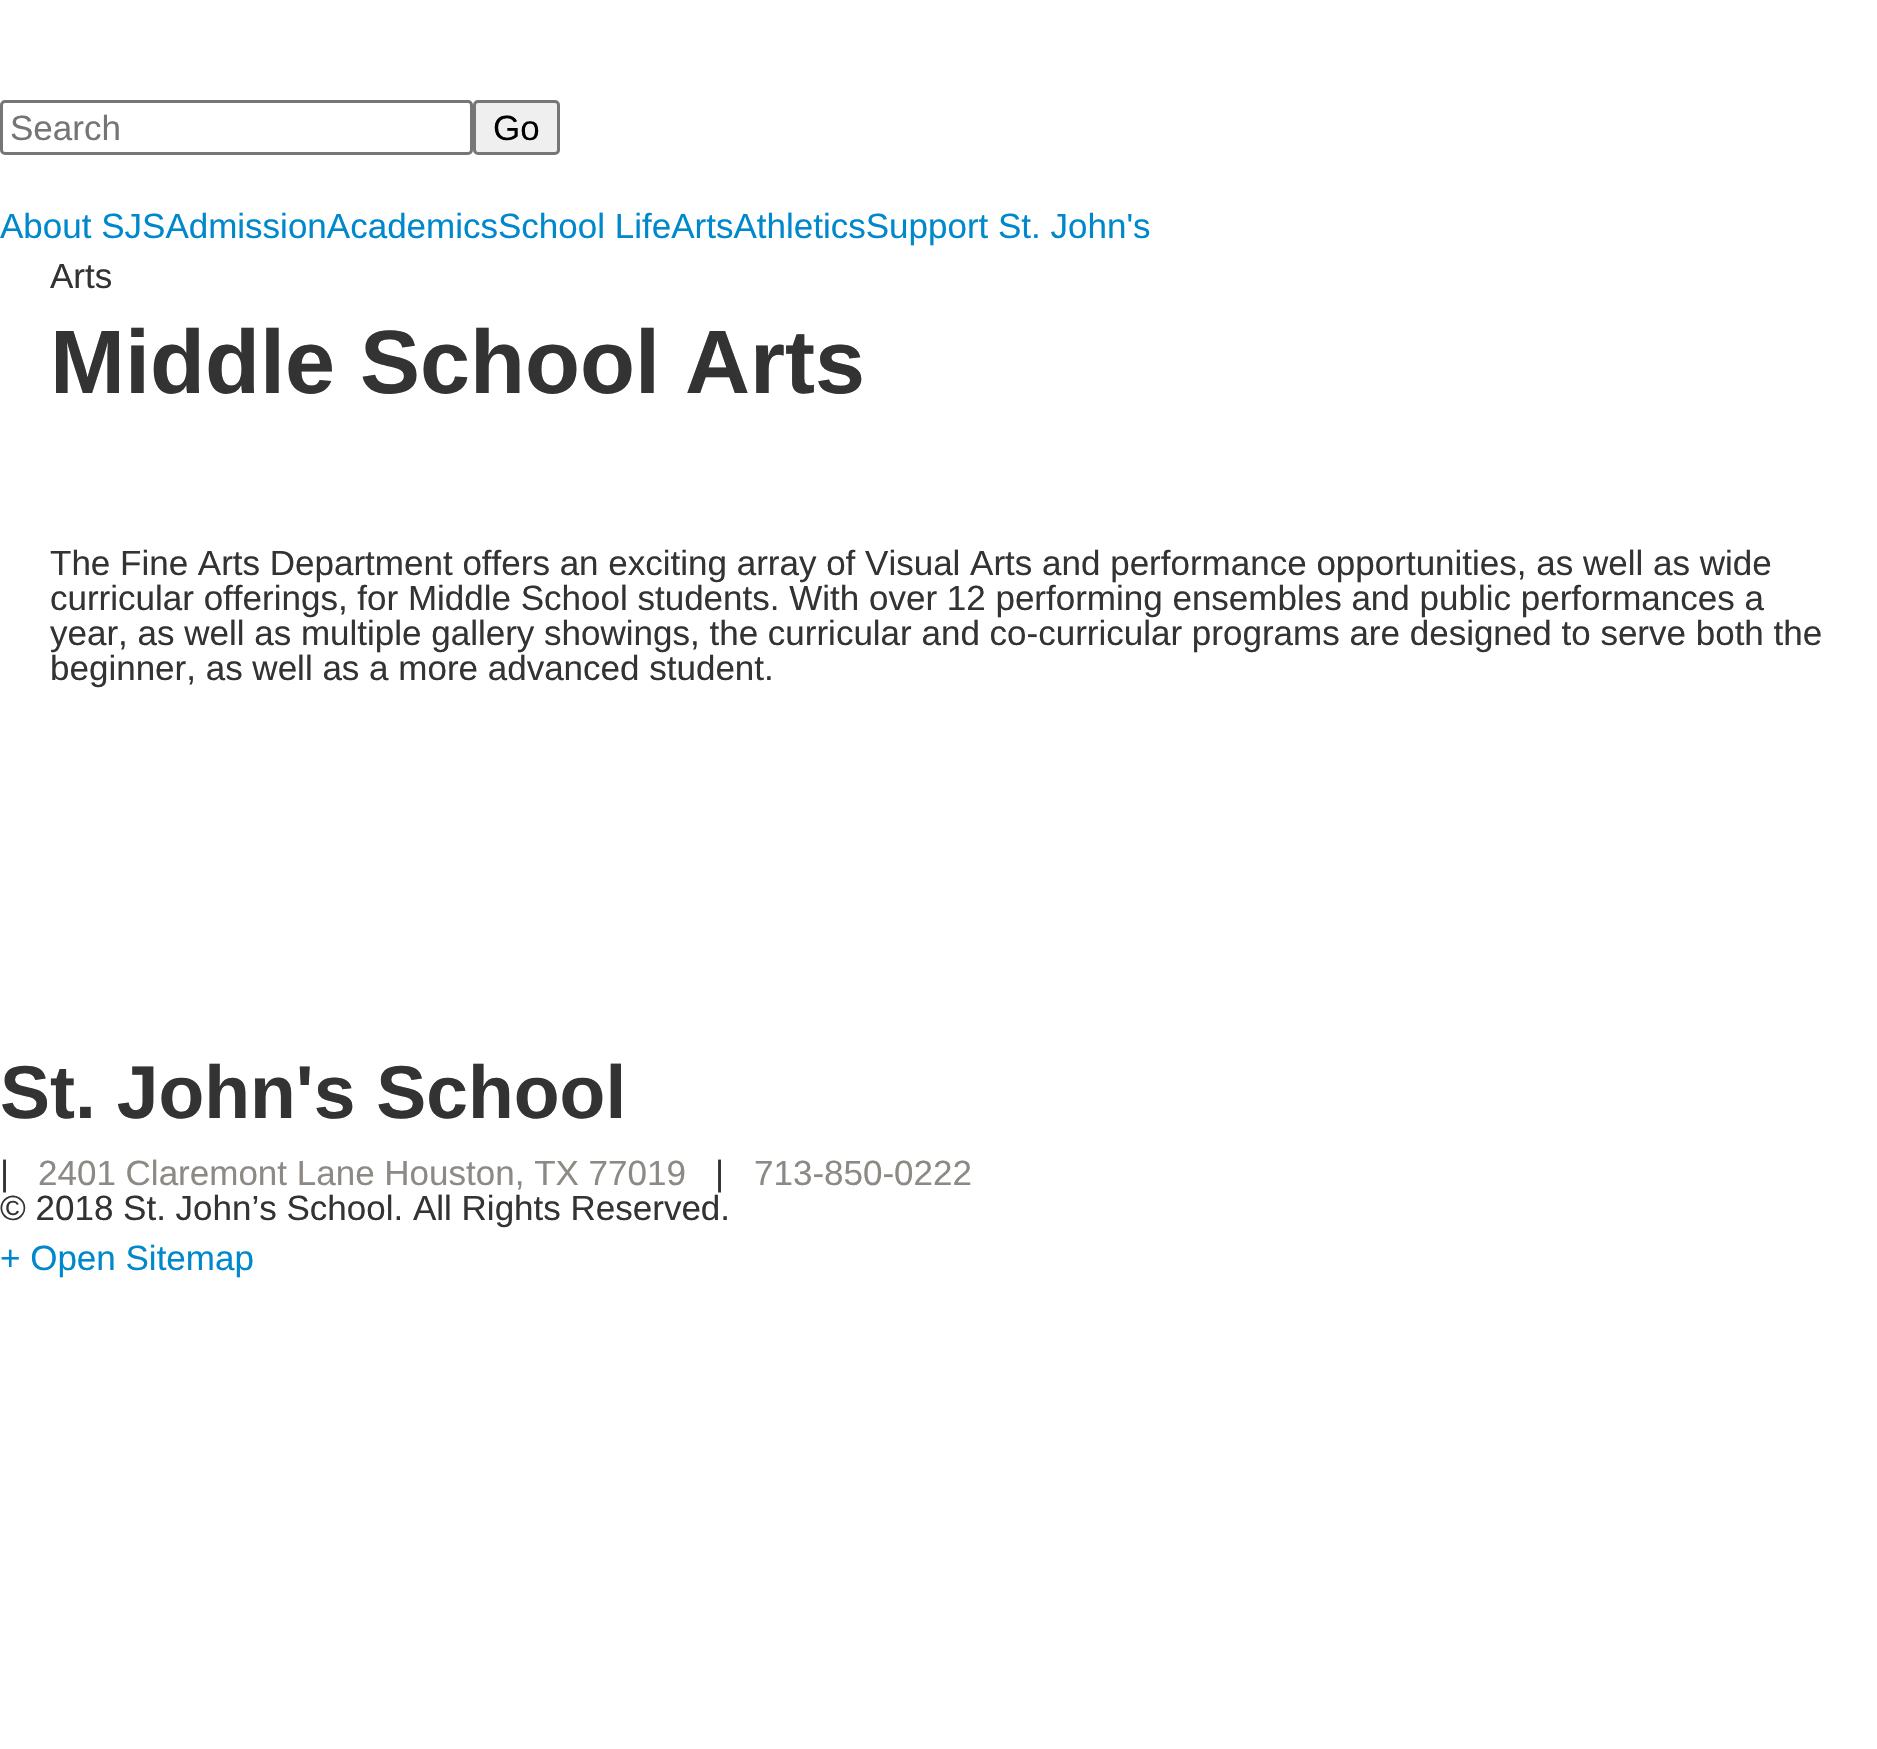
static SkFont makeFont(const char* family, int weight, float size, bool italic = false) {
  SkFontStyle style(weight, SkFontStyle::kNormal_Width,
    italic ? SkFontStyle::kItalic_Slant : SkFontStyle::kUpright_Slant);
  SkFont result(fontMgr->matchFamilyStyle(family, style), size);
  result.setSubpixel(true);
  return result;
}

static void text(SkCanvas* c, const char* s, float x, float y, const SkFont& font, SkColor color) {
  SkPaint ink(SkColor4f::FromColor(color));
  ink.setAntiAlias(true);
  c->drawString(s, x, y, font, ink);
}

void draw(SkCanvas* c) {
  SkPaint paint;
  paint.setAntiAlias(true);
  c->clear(0xffffffff);
  paint.setStyle(SkPaint::kStroke_Style);
  paint.setStrokeWidth(3);
  paint.setColor(0xff767676);
  c->drawRoundRect(SkRect::MakeLTRB(1.5f, 101.5f, 471.5f, 153.5f), 3.5f, 3.5f, paint);
  SkFont face1 = makeFont("Liberation Sans", 400, 35);
  text(c, "Search", 10, 140, face1, 0xff757575);
  paint.setStyle(SkPaint::kFill_Style);
  paint.setColor(0xffefefef);
  c->drawRoundRect(SkRect::MakeLTRB(474.5f, 101.5f, 558.5f, 153.5f), 3.5f, 3.5f, paint);
  paint.setStyle(SkPaint::kStroke_Style);
  paint.setColor(0xff767676);
  c->drawRoundRect(SkRect::MakeLTRB(474.5f, 101.5f, 558.5f, 153.5f), 3.5f, 3.5f, paint);
  text(c, "Go", 493, 140, face1, 0xff000000);
  text(c, "About SJSAdmissionAcademicsSchool LifeArtsAthleticsSupport St. John's", 0, 238, face1, 0xff0088cc);
  text(c, "Arts", 50, 288, face1, 0xff333333);
  SkFont face2 = makeFont("Liberation Sans", 700, 90);
  text(c, "Middle School Arts", 50, 393, face2, 0xff333333);
  text(c, "The Fine Arts Department offers an exciting array of Visual Arts and performance opportunities, as well as wide", 50, 575, face1, 0xff333333);
  text(c, "curricular offerings, for Middle School students. With over 12 performing ensembles and public performances a", 50, 610, face1, 0xff333333);
  text(c, "year, as well as multiple gallery showings, the curricular and co-curricular programs are designed to serve both the", 50, 645, face1, 0xff333333);
  text(c, "beginner, as well as a more advanced student.", 50, 680, face1, 0xff333333);
  SkFont face3 = makeFont("Liberation Sans", 700, 75);
  text(c, "St. John's School", 0, 1118, face3, 0xff333333);
  text(c, "|", 0, 1185, face1, 0xff333333);
  text(c, "2401 Claremont Lane Houston, TX 77019", 38, 1185, face1, 0xff8d8a85);
  text(c, "|", 715, 1185, face1, 0xff333333);
  text(c, "713-850-0222", 754, 1185, face1, 0xff8d8a85);
  text(c, "© 2018 St. John’s School. All Rights Reserved.", 0, 1220, face1, 0xff333333);
  text(c, "+ Open Sitemap", 0, 1270, face1, 0xff0088cc);
}
